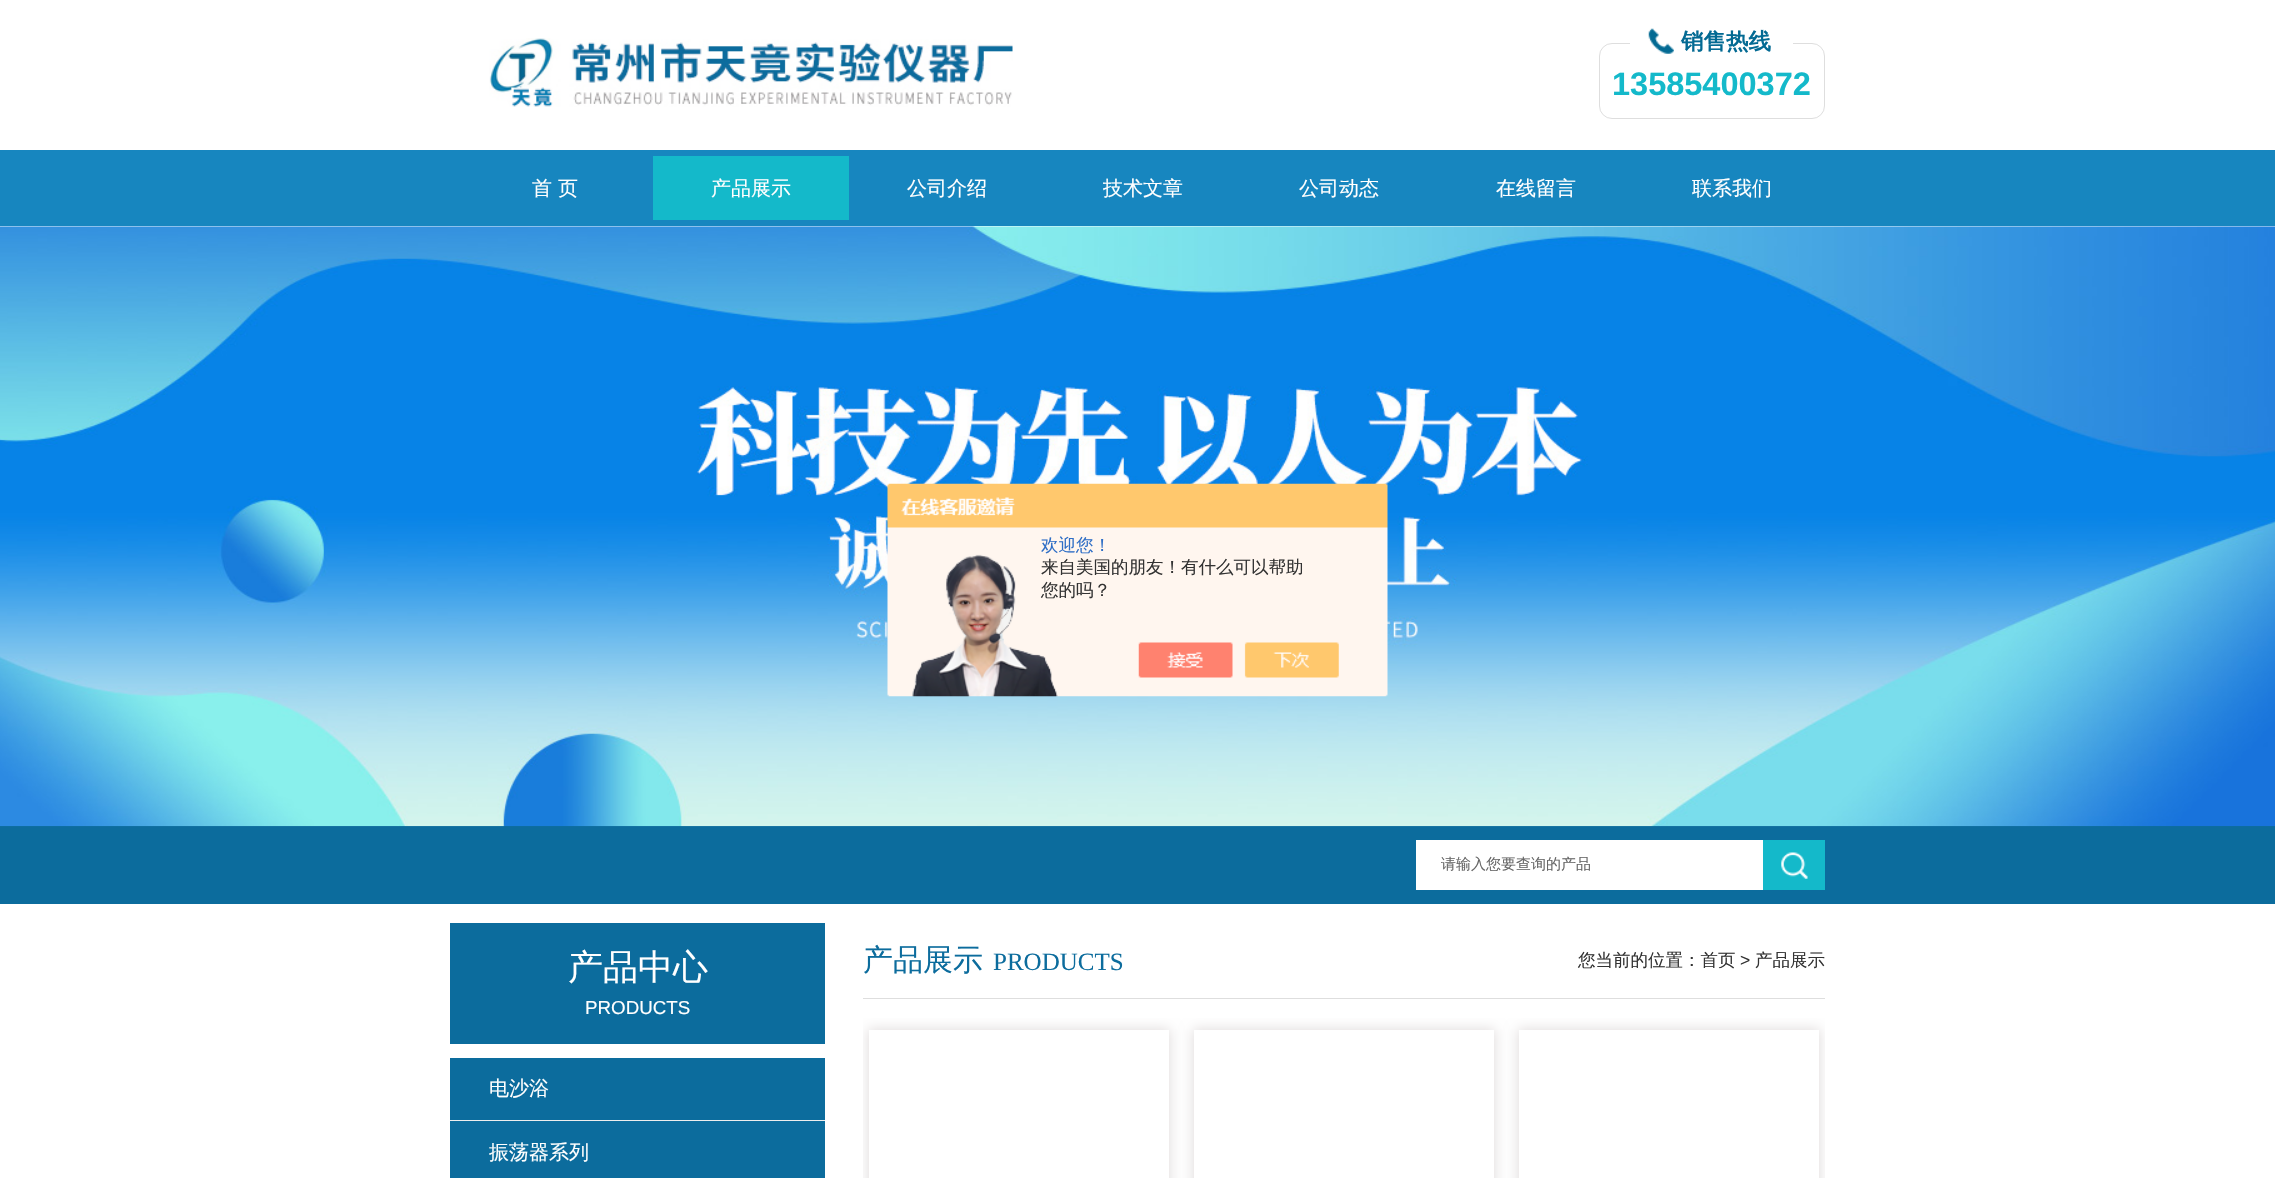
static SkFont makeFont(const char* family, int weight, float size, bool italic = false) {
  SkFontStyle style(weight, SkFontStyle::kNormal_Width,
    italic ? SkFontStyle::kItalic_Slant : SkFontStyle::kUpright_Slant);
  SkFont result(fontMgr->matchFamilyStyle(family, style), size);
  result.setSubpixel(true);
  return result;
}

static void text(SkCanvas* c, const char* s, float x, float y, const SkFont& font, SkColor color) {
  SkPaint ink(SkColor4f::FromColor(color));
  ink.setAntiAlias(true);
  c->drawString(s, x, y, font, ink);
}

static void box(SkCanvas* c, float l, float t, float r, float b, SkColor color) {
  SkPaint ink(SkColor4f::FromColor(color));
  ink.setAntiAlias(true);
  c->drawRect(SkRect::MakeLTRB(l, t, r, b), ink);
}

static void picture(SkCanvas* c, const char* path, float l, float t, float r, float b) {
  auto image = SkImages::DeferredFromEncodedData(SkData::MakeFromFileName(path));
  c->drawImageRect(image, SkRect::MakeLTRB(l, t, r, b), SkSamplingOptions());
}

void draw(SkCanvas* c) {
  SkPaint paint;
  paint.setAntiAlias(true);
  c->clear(0xffffffff);
  picture(c, "img_01.png", 489, 38, 1013, 107);
  paint.setStyle(SkPaint::kStroke_Style);
  paint.setStrokeWidth(1);
  paint.setColor(0xffdedede);
  c->drawRoundRect(SkRect::MakeLTRB(1599.5f, 43.5f, 1824.5f, 118.5f), 12.5f, 12.5f, paint);
  box(c, 1630, 43, 1793, 44, 0xffffffff);
  picture(c, "img_02.png", 1648, 28, 1674, 54);
  SkFont face1 = makeFont("WenQuanYi Zen Hei", 700, 22.5f);
  text(c, "销售热线", 1681, 49, face1, 0xff036a93);
  SkFont face2 = makeFont("Liberation Sans", 700, 32.5f);
  text(c, "13585400372", 1612, 95, face2, 0xff14b9ca);
  box(c, 0, 150, 2275, 226, 0xff1786bf);
  SkFont face3 = makeFont("WenQuanYi Zen Hei", 500, 20);
  text(c, "首 页", 532, 195, face3, 0xffffffff);
  box(c, 653, 156, 849, 220, 0xff14b9ca);
  text(c, "产品展示", 711, 195, face3, 0xffffffff);
  text(c, "公司介绍", 907, 195, face3, 0xffffffff);
  text(c, "技术文章", 1103, 195, face3, 0xffffffff);
  text(c, "公司动态", 1299, 195, face3, 0xffffffff);
  text(c, "在线留言", 1496, 195, face3, 0xffffffff);
  text(c, "联系我们", 1692, 195, face3, 0xffffffff);
  box(c, 0, 826, 2275, 904, 0xff0c6c9d);
  picture(c, "img_03.png", 0, 226, 2275, 827);
  box(c, 1416, 840, 1763, 890, 0xffffffff);
  SkFont face4 = makeFont("WenQuanYi Zen Hei", 500, 15);
  text(c, "请输入您要查询的产品", 1441, 869, face4, 0xff666666);
  box(c, 1763, 840, 1825, 890, 0xff14b9ca);
  picture(c, "img_04.png", 1781, 852, 1808, 879);
  box(c, 450, 923, 825, 1044, 0xff0c6c9d);
  SkFont face5 = makeFont("WenQuanYi Zen Hei", 500, 35);
  text(c, "产品中心", 568, 979, face5, 0xffffffff);
  SkFont face6 = makeFont("Liberation Sans", 400, 18.75f);
  text(c, "PRODUCTS", 585, 1014, face6, 0xffffffff);
  box(c, 450, 1120, 825, 1121, 0xffeeeeee);
  box(c, 450, 1058, 825, 1120, 0xff0c6c9d);
  text(c, "电沙浴", 489, 1095, face3, 0xffffffff);
  box(c, 450, 1121, 825, 1178, 0xff0c6c9d);
  text(c, "振荡器系列", 489, 1159, face3, 0xffffffff);
  box(c, 863, 998, 1825, 999, 0xffdedede);
  SkFont face7 = makeFont("WenQuanYi Zen Hei", 500, 30);
  text(c, "产品展示", 863, 970, face7, 0xff0c6c9d);
  SkFont face8 = makeFont("Liberation Serif", 400, 25);
  text(c, "PRODUCTS", 993, 970, face8, 0xff0c6c9d);
  SkFont face9 = makeFont("WenQuanYi Zen Hei", 500, 17.5f);
  text(c, "您当前的位置：首页", 1578, 966, face9, 0xff333333);
  SkFont face10 = makeFont("Liberation Sans", 400, 17.5f);
  text(c, ">", 1740, 966, face10, 0xff333333);
  text(c, "产品展示", 1755, 966, face9, 0xff333333);
  c->save();
  c->clipRect(SkRect::MakeLTRB(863, 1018, 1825, 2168));
  paint.setStyle(SkPaint::kFill_Style);
  paint.setColor(0xffe1dddd);
  paint.setMaskFilter(SkMaskFilter::MakeBlur(kNormal_SkBlurStyle, 6));
  c->drawRect(SkRect::MakeLTRB(868, 1029, 1170, 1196), paint);
  paint.setMaskFilter(nullptr);
  c->restore();
  box(c, 869, 1030, 1169, 1178, 0xffffffff);
  c->save();
  c->clipRect(SkRect::MakeLTRB(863, 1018, 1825, 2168));
  paint.setMaskFilter(SkMaskFilter::MakeBlur(kNormal_SkBlurStyle, 6));
  c->drawRect(SkRect::MakeLTRB(1193, 1029, 1495, 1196), paint);
  paint.setMaskFilter(nullptr);
  c->restore();
  box(c, 1194, 1030, 1494, 1178, 0xffffffff);
  c->save();
  c->clipRect(SkRect::MakeLTRB(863, 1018, 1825, 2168));
  paint.setMaskFilter(SkMaskFilter::MakeBlur(kNormal_SkBlurStyle, 6));
  c->drawRect(SkRect::MakeLTRB(1518, 1029, 1820, 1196), paint);
  paint.setMaskFilter(nullptr);
  c->restore();
  box(c, 1519, 1030, 1819, 1178, 0xffffffff);
  picture(c, "img_05.png", 887, 483, 1388, 697);
  text(c, "欢迎您！", 1041, 551, face9, 0xff2e6ec6);
  text(c, "来自美国的朋友！有什么可以帮助", 1041, 573, face9, 0xff333333);
  text(c, "您的吗？", 1041, 596, face9, 0xff333333);
}
